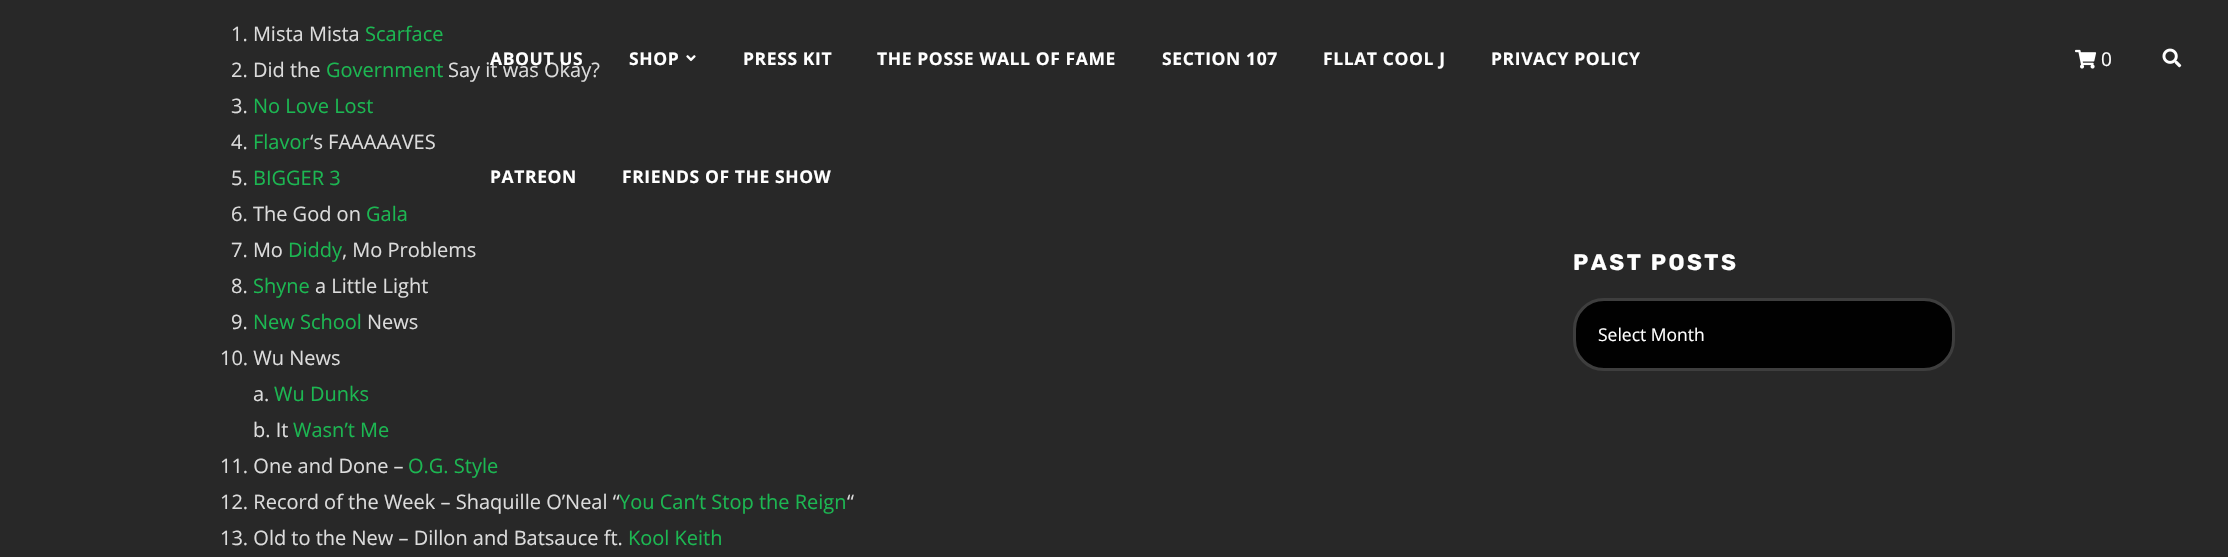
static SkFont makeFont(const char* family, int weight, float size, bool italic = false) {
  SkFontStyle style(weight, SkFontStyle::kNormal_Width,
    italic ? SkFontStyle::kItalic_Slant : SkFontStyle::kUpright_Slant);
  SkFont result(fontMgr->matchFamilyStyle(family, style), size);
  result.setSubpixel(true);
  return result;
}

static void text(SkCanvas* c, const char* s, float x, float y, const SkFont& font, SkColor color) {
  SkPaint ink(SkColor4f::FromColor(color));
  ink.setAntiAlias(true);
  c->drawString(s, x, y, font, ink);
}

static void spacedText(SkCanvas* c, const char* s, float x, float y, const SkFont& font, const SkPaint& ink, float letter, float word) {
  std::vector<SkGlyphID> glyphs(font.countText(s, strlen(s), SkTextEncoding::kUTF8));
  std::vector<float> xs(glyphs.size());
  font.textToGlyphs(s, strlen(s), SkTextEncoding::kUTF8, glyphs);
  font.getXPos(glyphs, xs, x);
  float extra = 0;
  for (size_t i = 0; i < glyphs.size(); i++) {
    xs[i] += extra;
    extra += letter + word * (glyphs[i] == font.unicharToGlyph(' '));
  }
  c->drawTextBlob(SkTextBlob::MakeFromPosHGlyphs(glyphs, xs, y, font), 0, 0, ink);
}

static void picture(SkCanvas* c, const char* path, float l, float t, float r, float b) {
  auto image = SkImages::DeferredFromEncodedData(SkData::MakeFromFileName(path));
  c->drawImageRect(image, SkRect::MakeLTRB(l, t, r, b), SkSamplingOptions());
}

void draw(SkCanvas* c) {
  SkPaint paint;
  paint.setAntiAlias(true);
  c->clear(0xff282828);
  SkFont face1 = makeFont("Open Sans", 400, 20);
  text(c, "1. Mista Mista", 231, 41, face1, 0xffdcdcdc);
  text(c, "Scarface", 365, 41, face1, 0xff1cb752);
  text(c, "2. Did the", 231, 77, face1, 0xffdcdcdc);
  text(c, "Government", 326, 77, face1, 0xff1cb752);
  text(c, "Say it was Okay?", 448, 77, face1, 0xffdcdcdc);
  text(c, "3.", 231, 113, face1, 0xffdcdcdc);
  text(c, "No Love Lost", 253, 113, face1, 0xff1cb752);
  text(c, "4.", 231, 149, face1, 0xffdcdcdc);
  text(c, "Flavor", 253, 149, face1, 0xff1cb752);
  text(c, "‘s FAAAAAVES", 310, 149, face1, 0xffdcdcdc);
  text(c, "5.", 231, 185, face1, 0xffdcdcdc);
  text(c, "BIGGER 3", 253, 185, face1, 0xff1cb752);
  text(c, "6. The God on", 231, 221, face1, 0xffdcdcdc);
  text(c, "Gala", 366, 221, face1, 0xff1cb752);
  text(c, "7. Mo", 231, 257, face1, 0xffdcdcdc);
  text(c, "Diddy", 288, 257, face1, 0xff1cb752);
  text(c, ", Mo Problems", 342, 257, face1, 0xffdcdcdc);
  text(c, "8.", 231, 293, face1, 0xffdcdcdc);
  text(c, "Shyne", 253, 293, face1, 0xff1cb752);
  text(c, "a Little Light", 315, 293, face1, 0xffdcdcdc);
  text(c, "9.", 231, 329, face1, 0xffdcdcdc);
  text(c, "New School", 253, 329, face1, 0xff1cb752);
  text(c, "News", 367, 329, face1, 0xffdcdcdc);
  text(c, "10. Wu News", 220, 365, face1, 0xffdcdcdc);
  text(c, "a.", 253, 401, face1, 0xffdcdcdc);
  text(c, "Wu Dunks", 274, 401, face1, 0xff1cb752);
  text(c, "b. It", 253, 437, face1, 0xffdcdcdc);
  text(c, "Wasn’t Me", 293, 437, face1, 0xff1cb752);
  text(c, "11. One and Done –", 220, 473, face1, 0xffdcdcdc);
  text(c, "O.G. Style", 408, 473, face1, 0xff1cb752);
  text(c, "12. Record of the Week – Shaquille O’Neal “", 220, 509, face1, 0xffdcdcdc);
  text(c, "You Can’t Stop the Reign", 619, 509, face1, 0xff1cb752);
  text(c, "“", 847, 509, face1, 0xffdcdcdc);
  text(c, "13. Old to the New – Dillon and Batsauce ft.", 220, 545, face1, 0xffdcdcdc);
  text(c, "Kool Keith", 628, 545, face1, 0xff1cb752);
  SkFont face2 = makeFont("Rubik", 700, 22.5f);
  paint.setColor(0xffffffff);
  spacedText(c, "PAST POSTS", 1573, 270, face2, paint, 2.5f, 0);
  paint.setColor(0xff010101);
  c->drawRoundRect(SkRect::MakeLTRB(1574.5f, 299.5f, 1953.5f, 369.5f), 29.5f, 29.5f, paint);
  paint.setStyle(SkPaint::kStroke_Style);
  paint.setStrokeWidth(3);
  paint.setColor(0xff3e3e3e);
  c->drawRoundRect(SkRect::MakeLTRB(1574.5f, 299.5f, 1953.5f, 369.5f), 29.5f, 29.5f, paint);
  SkFont face3 = makeFont("Open Sans", 400, 17.5f);
  text(c, "Select Month", 1598, 341, face3, 0xffffffff);
  SkFont face4 = makeFont("Open Sans", 700, 17.5f);
  paint.setStyle(SkPaint::kFill_Style);
  paint.setColor(0xffffffff);
  spacedText(c, "ABOUT US", 490, 65, face4, paint, 0.6f, 0);
  spacedText(c, "SHOP", 629, 65, face4, paint, 0.6f, 0);
  picture(c, "img_01.png", 686, 55, 696, 62);
  spacedText(c, "PRESS KIT", 743, 65, face4, paint, 0.6f, 0);
  spacedText(c, "THE POSSE WALL OF FAME", 877, 65, face4, paint, 0.6f, 0);
  spacedText(c, "SECTION 107", 1162, 65, face4, paint, 0.6f, 0);
  spacedText(c, "FLLAT COOL J", 1323, 65, face4, paint, 0.6f, 0);
  spacedText(c, "PRIVACY POLICY", 1491, 65, face4, paint, 0.6f, 0);
  spacedText(c, "PATREON", 490, 183, face4, paint, 0.6f, 0);
  spacedText(c, "FRIENDS OF THE SHOW", 622, 183, face4, paint, 0.6f, 0);
  picture(c, "img_02.png", 2075, 49, 2097, 69);
  SkFont face5 = makeFont("Open Sans", 400, 19);
  text(c, "0", 2101, 66, face5, 0xffffffff);
  picture(c, "img_03.png", 2162, 48, 2182, 68);
}
